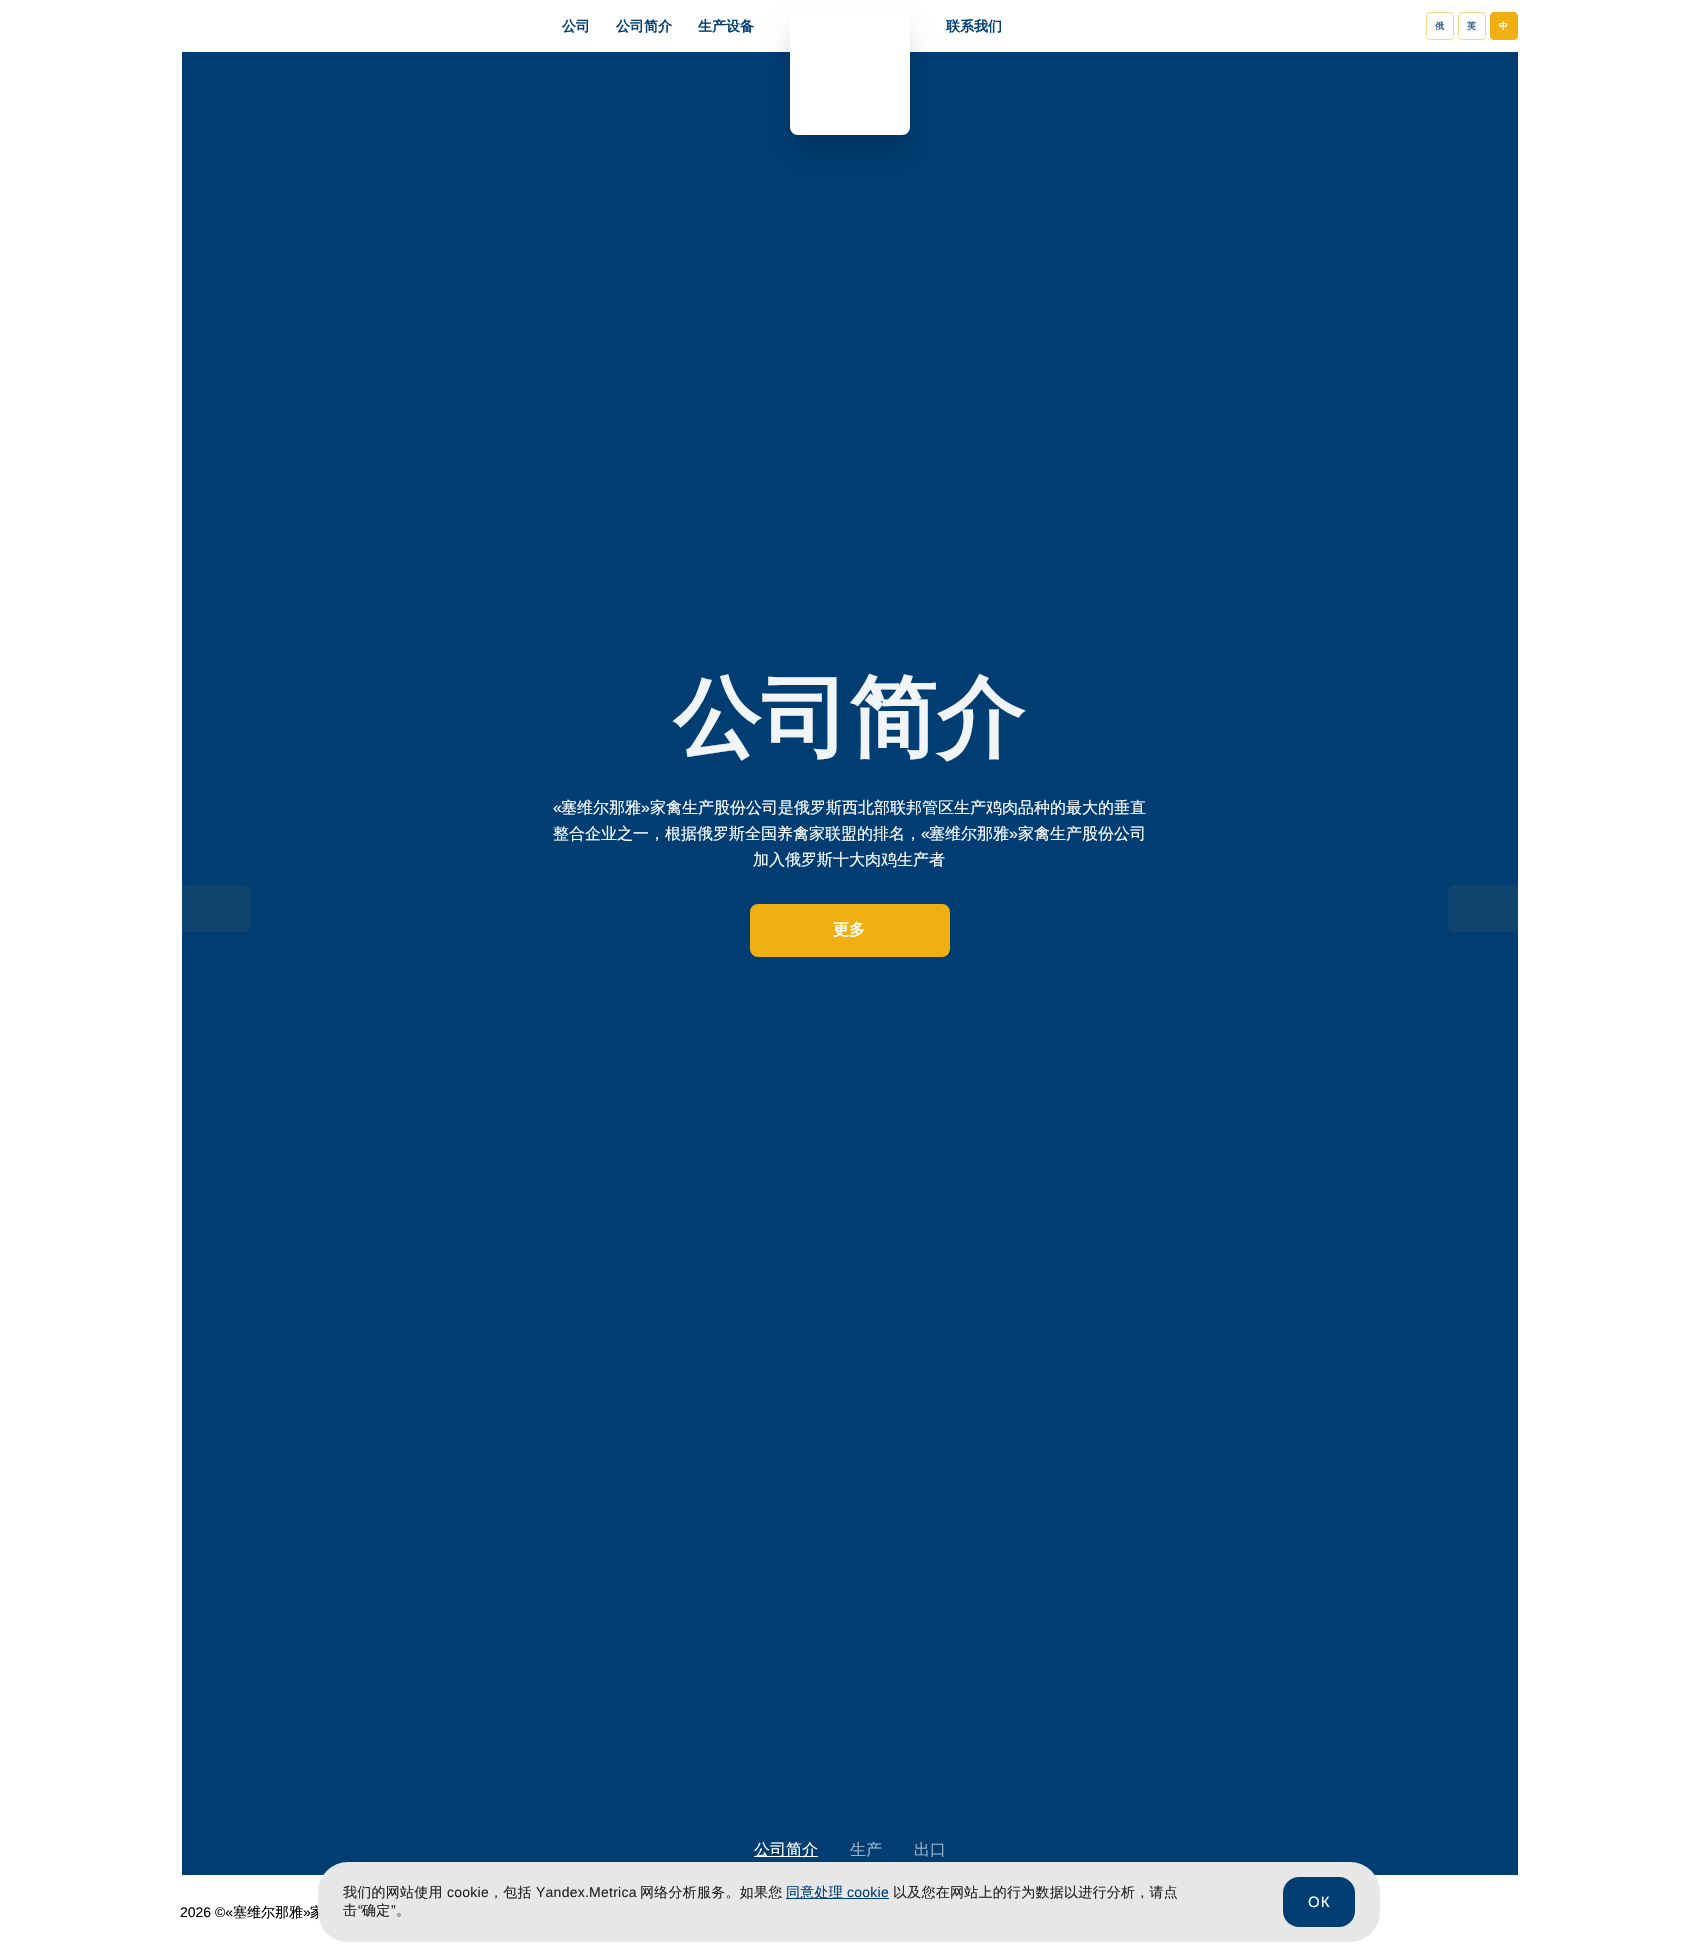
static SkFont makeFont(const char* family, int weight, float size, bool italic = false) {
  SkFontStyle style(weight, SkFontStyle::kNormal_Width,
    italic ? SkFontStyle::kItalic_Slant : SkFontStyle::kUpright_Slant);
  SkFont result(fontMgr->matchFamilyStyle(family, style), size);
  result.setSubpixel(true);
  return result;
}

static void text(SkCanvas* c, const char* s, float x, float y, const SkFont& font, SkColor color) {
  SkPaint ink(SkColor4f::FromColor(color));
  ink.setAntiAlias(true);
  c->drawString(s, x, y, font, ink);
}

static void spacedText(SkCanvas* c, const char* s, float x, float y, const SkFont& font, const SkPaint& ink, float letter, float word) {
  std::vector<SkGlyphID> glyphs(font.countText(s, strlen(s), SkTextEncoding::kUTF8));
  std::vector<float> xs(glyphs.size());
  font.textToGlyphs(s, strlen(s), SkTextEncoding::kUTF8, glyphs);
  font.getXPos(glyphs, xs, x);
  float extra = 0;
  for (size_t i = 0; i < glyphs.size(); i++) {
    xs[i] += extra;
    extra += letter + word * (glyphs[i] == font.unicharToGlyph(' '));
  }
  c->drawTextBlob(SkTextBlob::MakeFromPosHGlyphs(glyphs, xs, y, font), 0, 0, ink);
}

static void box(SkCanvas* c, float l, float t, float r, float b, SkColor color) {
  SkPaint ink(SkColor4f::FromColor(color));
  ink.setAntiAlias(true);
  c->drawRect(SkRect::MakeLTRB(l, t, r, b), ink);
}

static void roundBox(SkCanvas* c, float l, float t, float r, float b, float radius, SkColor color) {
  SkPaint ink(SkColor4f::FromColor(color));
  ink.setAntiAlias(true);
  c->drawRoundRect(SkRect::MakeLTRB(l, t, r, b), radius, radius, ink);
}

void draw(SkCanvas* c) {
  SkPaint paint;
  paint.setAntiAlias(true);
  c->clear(0xffffffff);
  box(c, 182, 52, 1518, 1875, 0xff003d73);
  paint.setColor(0x21000000);
  paint.setMaskFilter(SkMaskFilter::MakeBlur(kNormal_SkBlurStyle, 12));
  c->drawRoundRect(SkRect::MakeLTRB(790, 30, 910, 155), 8, 8, paint);
  paint.setMaskFilter(nullptr);
  paint.setColor(0xffffffff);
  c->drawPath(SkPathBuilder().moveTo(790, 10).lineTo(910, 10).lineTo(910, 127).cubicTo(910, 131.5f, 906.5f, 135, 902, 135).lineTo(798, 135).cubicTo(793.5f, 135, 790, 131.5f, 790, 127).close().detach(), paint);
  SkFont face1 = makeFont("WenQuanYi Zen Hei", 700, 14);
  text(c, "公司", 562, 31, face1, 0xff003d73);
  text(c, "公司简介", 616, 31, face1, 0xff003d73);
  text(c, "生产设备", 698, 31, face1, 0xff003d73);
  text(c, "联系我们", 946, 31, face1, 0xff003d73);
  paint.setStyle(SkPaint::kStroke_Style);
  paint.setStrokeWidth(1);
  paint.setColor(0xfff8d789);
  c->drawRoundRect(SkRect::MakeLTRB(1426.5f, 12.5f, 1453.5f, 39.5f), 3.5f, 3.5f, paint);
  SkFont face2 = makeFont("WenQuanYi Zen Hei", 700, 9);
  text(c, "俄", 1435, 29, face2, 0xff33648f);
  c->drawRoundRect(SkRect::MakeLTRB(1458.5f, 12.5f, 1485.5f, 39.5f), 3.5f, 3.5f, paint);
  text(c, "英", 1467, 29, face2, 0xff33648f);
  paint.setStyle(SkPaint::kFill_Style);
  paint.setColor(0xfff0af13);
  c->drawRoundRect(SkRect::MakeLTRB(1490.5f, 12.5f, 1517.5f, 39.5f), 3.5f, 3.5f, paint);
  paint.setStyle(SkPaint::kStroke_Style);
  c->drawRoundRect(SkRect::MakeLTRB(1490.5f, 12.5f, 1517.5f, 39.5f), 3.5f, 3.5f, paint);
  text(c, "中", 1499, 29, face2, 0xffffffff);
  paint.setStyle(SkPaint::kFill_Style);
  paint.setColor(0xff0e446d);
  c->drawPath(SkPathBuilder().moveTo(182, 885).lineTo(244, 885).cubicTo(248, 885, 251, 888, 251, 892).lineTo(251, 925).cubicTo(251, 929, 248, 932, 244, 932).lineTo(182, 932).close().detach(), paint);
  c->save();
  c->clipRect(SkRect::MakeLTRB(182, 0, 1518, 1875));
  paint.setStyle(SkPaint::kStroke_Style);
  paint.setStrokeWidth(2);
  c->drawRoundRect(SkRect::MakeLTRB(72, 886, 250, 931), 6, 6, paint);
  c->restore();
  SkFont face3 = makeFont("WenQuanYi Zen Hei", 700, 88);
  text(c, "公司简介", 673, 748, face3, 0xfff2f5f8);
  SkFont face4 = makeFont("Liberation Sans", 400, 16);
  text(c, "«", 553, 813, face4, 0xffffffff);
  SkFont face5 = makeFont("WenQuanYi Zen Hei", 500, 16);
  text(c, "塞维尔那雅", 561, 813, face5, 0xffffffff);
  text(c, "»", 641, 813, face4, 0xffffffff);
  text(c, "家禽生产股份公司是俄罗斯西北部联邦管区生产鸡肉品种的最大的垂直", 650, 813, face5, 0xffffffff);
  text(c, "整合企业之一，根据俄罗斯全国养禽家联盟的排名，", 553, 839, face5, 0xffffffff);
  text(c, "«", 921, 839, face4, 0xffffffff);
  text(c, "塞维尔那雅", 929, 839, face5, 0xffffffff);
  text(c, "»", 1009, 839, face4, 0xffffffff);
  text(c, "家禽生产股份公司", 1018, 839, face5, 0xffffffff);
  text(c, "加入俄罗斯十大肉鸡生产者", 753, 865, face5, 0xffffffff);
  paint.setStyle(SkPaint::kFill_Style);
  paint.setColor(0xfff0af13);
  c->drawRoundRect(SkRect::MakeLTRB(751, 905, 949, 956), 7, 7, paint);
  paint.setStyle(SkPaint::kStroke_Style);
  c->drawRoundRect(SkRect::MakeLTRB(751, 905, 949, 956), 7, 7, paint);
  SkFont face6 = makeFont("WenQuanYi Zen Hei", 700, 16);
  text(c, "更多", 833, 935, face6, 0xffffffff);
  paint.setStyle(SkPaint::kFill_Style);
  paint.setColor(0xff0e446d);
  c->drawPath(SkPathBuilder().moveTo(1455, 885).lineTo(1518, 885).lineTo(1518, 932).lineTo(1455, 932).cubicTo(1451, 932, 1448, 929, 1448, 925).lineTo(1448, 892).cubicTo(1448, 888, 1451, 885, 1455, 885).close().detach(), paint);
  c->save();
  c->clipRect(SkRect::MakeLTRB(182, 0, 1518, 1875));
  paint.setStyle(SkPaint::kStroke_Style);
  c->drawRoundRect(SkRect::MakeLTRB(1449, 886, 1627, 931), 6, 6, paint);
  c->restore();
  text(c, "公司简介", 754, 1855, face5, 0xffffffff);
  box(c, 754, 1856, 818, 1857, 0xffffffff);
  text(c, "生产", 850, 1855, face5, 0xff99b1c7);
  text(c, "出口", 914, 1855, face5, 0xff99b1c7);
  SkFont face7 = makeFont("Liberation Sans", 400, 14);
  text(c, "2026 ©«", 180, 1917, face7, 0xff000000);
  SkFont face8 = makeFont("WenQuanYi Zen Hei", 500, 14);
  text(c, "塞维尔那雅", 233, 1917, face8, 0xff000000);
  text(c, "»", 303, 1917, face7, 0xff000000);
  text(c, "家", 310, 1917, face8, 0xff000000);
  roundBox(c, 318, 1862, 1380, 1942, 30, 0xffe7e7e7);
  paint.setStyle(SkPaint::kFill_Style);
  paint.setColor(0xff222222);
  spacedText(c, "我们的网站使用", 343, 1897, face8, paint, 0.25f, 0);
  spacedText(c, "cookie", 447, 1897, face7, paint, 0.25f, 0);
  spacedText(c, "，包括", 489, 1897, face8, paint, 0.25f, 0);
  spacedText(c, "Yandex.Metrica", 536, 1897, face7, paint, 0.25f, 0);
  spacedText(c, "网络分析服务。如果您", 640, 1897, face8, paint, 0.25f, 0);
  box(c, 786, 1898, 889, 1899, 0xff003d73);
  paint.setColor(0xff003d73);
  spacedText(c, "同意处理", 786, 1897, face8, paint, 0.25f, 0);
  spacedText(c, "cookie", 847, 1897, face7, paint, 0.25f, 0);
  paint.setColor(0xff222222);
  spacedText(c, "以及您在网站上的行为数据以进行分析，请点", 893, 1897, face8, paint, 0.25f, 0);
  spacedText(c, "击", 343, 1915, face8, paint, 0.25f, 0);
  spacedText(c, "“", 358, 1915, face7, paint, 0.25f, 0);
  spacedText(c, "确定", 362, 1915, face8, paint, 0.25f, 0);
  spacedText(c, "”", 391, 1915, face7, paint, 0.25f, 0);
  spacedText(c, "。", 396, 1915, face8, paint, 0.25f, 0);
  roundBox(c, 1283, 1877, 1355, 1927, 16, 0xff003d73);
  SkFont face9 = makeFont("Liberation Sans", 400, 15);
  paint.setColor(0xffffffff);
  spacedText(c, "ОК", 1308, 1907, face9, paint, 1, 0);
}
